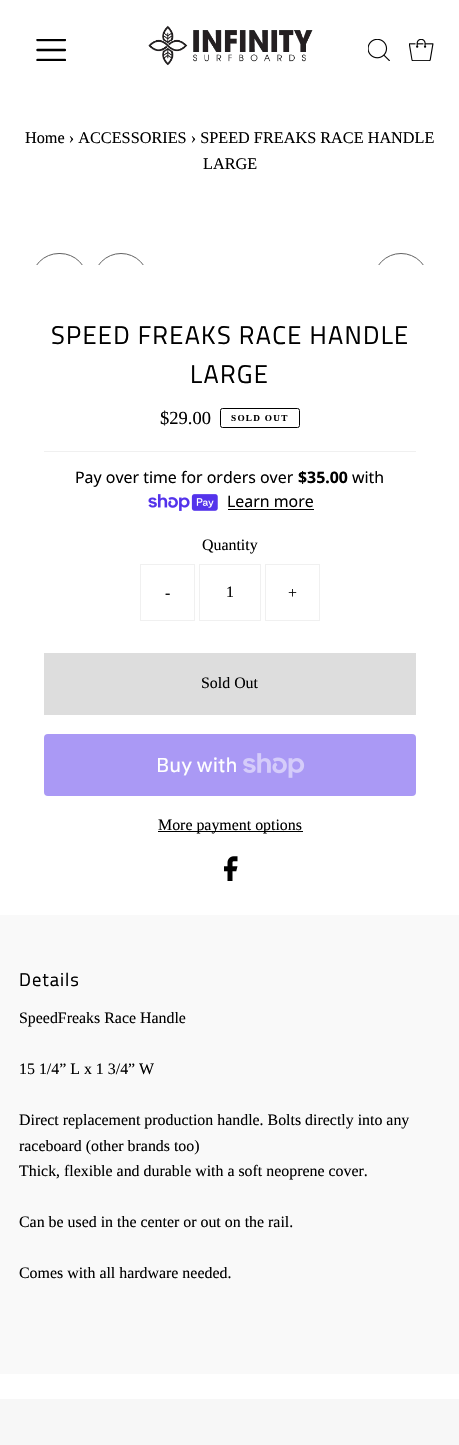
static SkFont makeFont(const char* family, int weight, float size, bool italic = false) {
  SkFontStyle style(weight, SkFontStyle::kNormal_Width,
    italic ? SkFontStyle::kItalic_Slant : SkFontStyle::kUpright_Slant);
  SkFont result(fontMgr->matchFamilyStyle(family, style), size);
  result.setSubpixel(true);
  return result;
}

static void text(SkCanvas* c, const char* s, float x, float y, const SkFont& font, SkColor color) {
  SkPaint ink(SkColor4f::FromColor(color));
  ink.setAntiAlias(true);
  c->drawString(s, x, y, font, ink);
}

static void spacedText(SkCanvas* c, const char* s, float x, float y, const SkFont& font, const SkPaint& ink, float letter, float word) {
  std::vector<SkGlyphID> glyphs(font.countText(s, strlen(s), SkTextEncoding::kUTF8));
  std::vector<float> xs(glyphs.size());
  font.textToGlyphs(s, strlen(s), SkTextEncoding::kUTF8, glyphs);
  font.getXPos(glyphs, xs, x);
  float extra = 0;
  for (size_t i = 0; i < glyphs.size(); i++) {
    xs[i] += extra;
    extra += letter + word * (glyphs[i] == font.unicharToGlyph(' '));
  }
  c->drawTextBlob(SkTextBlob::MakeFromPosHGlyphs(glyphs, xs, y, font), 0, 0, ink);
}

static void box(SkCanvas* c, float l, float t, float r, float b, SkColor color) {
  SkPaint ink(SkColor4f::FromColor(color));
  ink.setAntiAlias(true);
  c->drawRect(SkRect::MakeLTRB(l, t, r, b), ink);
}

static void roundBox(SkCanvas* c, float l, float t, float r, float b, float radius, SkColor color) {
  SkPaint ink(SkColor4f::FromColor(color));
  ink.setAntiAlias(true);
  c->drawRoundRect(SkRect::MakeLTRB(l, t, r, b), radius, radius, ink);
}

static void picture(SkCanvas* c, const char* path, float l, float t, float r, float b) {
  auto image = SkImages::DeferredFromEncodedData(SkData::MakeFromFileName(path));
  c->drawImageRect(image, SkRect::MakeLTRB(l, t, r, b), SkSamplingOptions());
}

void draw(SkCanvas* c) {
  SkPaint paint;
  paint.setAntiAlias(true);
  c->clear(0xffffffff);
  picture(c, "img_01.png", 36, 39, 66, 61);
  picture(c, "img_02.png", 148, 25, 313, 66);
  picture(c, "img_03.png", 368, 39, 390, 61);
  picture(c, "img_04.png", 409, 39, 434, 61);
  SkFont face1 = makeFont("Liberation Serif", 400, 16.25f);
  text(c, "Home › ACCESSORIES › SPEED FREAKS RACE HANDLE", 25, 143, face1, 0xff000000);
  text(c, "LARGE", 203, 169, face1, 0xff000000);
  c->save();
  c->clipRect(SkRect::MakeLTRB(19, 240, 441, 265));
  paint.setStyle(SkPaint::kStroke_Style);
  paint.setStrokeWidth(1);
  paint.setColor(0xff616161);
  c->drawRoundRect(SkRect::MakeLTRB(31.5f, 253.5f, 87.5f, 308.5f), 27.5f, 27.5f, paint);
  c->drawCircle(121, 281, 27.5f, paint);
  c->drawCircle(401, 281, 27.5f, paint);
  c->restore();
  SkFont face2 = makeFont("Titillium Web", 400, 25.5f);
  paint.setStyle(SkPaint::kFill_Style);
  paint.setColor(0xff000000);
  spacedText(c, "SPEED FREAKS RACE HANDLE", 51, 344, face2, paint, 1.25f, 0);
  spacedText(c, "LARGE", 190, 383, face2, paint, 1.25f, 0);
  box(c, 44, 451, 416, 452, 0xfff0f0f0);
  SkFont face3 = makeFont("Liberation Serif", 400, 18.5f);
  text(c, "$29.00", 160, 424, face3, 0xff000000);
  paint.setStyle(SkPaint::kStroke_Style);
  c->drawRoundRect(SkRect::MakeLTRB(220.5f, 408.5f, 299.5f, 427.5f), 2, 2, paint);
  SkFont face4 = makeFont("Liberation Serif", 700, 9.25f);
  paint.setStyle(SkPaint::kFill_Style);
  spacedText(c, "SOLD OUT", 231, 421, face4, paint, 1.25f, 0);
  SkFont face5 = makeFont("Noto Sans", 400, 15.9f);
  text(c, "Pay over time for orders over", 75, 483, face5, 0xff000000);
  SkFont face6 = makeFont("Noto Sans", 700, 15.9f);
  text(c, "$35.00", 298, 483, face6, 0xff000000);
  text(c, "with", 352, 483, face5, 0xff000000);
  picture(c, "img_05.png", 148, 494, 218, 511);
  text(c, "Learn more", 227, 507, face5, 0xff000000);
  box(c, 228, 509, 314, 510, 0xff000000);
  SkFont face7 = makeFont("Liberation Serif", 400, 15.9f);
  text(c, "Quantity", 202, 550, face7, 0xff000000);
  paint.setStyle(SkPaint::kStroke_Style);
  paint.setColor(0xfff0f0f0);
  c->drawRect(SkRect::MakeLTRB(140.5f, 564.5f, 194.5f, 620.5f), paint);
  text(c, "-", 165, 598, face7, 0xff000000);
  c->drawRect(SkRect::MakeLTRB(199.5f, 564.5f, 260.5f, 620.5f), paint);
  text(c, "1", 226, 597, face7, 0xff000000);
  c->drawRect(SkRect::MakeLTRB(265.5f, 564.5f, 319.5f, 620.5f), paint);
  text(c, "+", 288, 598, face7, 0xff000000);
  box(c, 44, 653, 416, 715, 0xffdddddd);
  text(c, "Sold Out", 201, 688, face7, 0xff000000);
  roundBox(c, 44, 734, 416, 796, 4, 0xffaa99f5);
  SkFont face8 = makeFont("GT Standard", 400, 20);
  text(c, "Buy with", 156, 772, face8, 0xffffffff);
  picture(c, "img_06.png", 243, 753, 305, 778);
  box(c, 158, 831, 303, 832, 0xff000000);
  text(c, "More payment options", 158, 830, face7, 0xff000000);
  picture(c, "img_07.png", 224, 856, 238, 881);
  box(c, 0, 915, 459, 1374, 0xfff9f9f9);
  SkFont face9 = makeFont("Titillium Web", 400, 18.5f);
  paint.setStyle(SkPaint::kFill_Style);
  paint.setColor(0xff000000);
  spacedText(c, "Details", 19, 986, face9, paint, 1, 0);
  text(c, "SpeedFreaks Race Handle", 19, 1023, face7, 0xff000000);
  text(c, "15 1/4” L x 1 3/4” W", 19, 1074, face7, 0xff000000);
  text(c, "Direct replacement production handle. Bolts directly into any", 19, 1125, face7, 0xff000000);
  text(c, "raceboard (other brands too)", 19, 1151, face7, 0xff000000);
  text(c, "Thick, flexible and durable with a soft neoprene cover.", 19, 1176, face7, 0xff000000);
  text(c, "Can be used in the center or out on the rail.", 19, 1227, face7, 0xff000000);
  text(c, "Comes with all hardware needed.", 19, 1278, face7, 0xff000000);
  box(c, 0, 1399, 459, 1445, 0xfff7f7f7);
}
